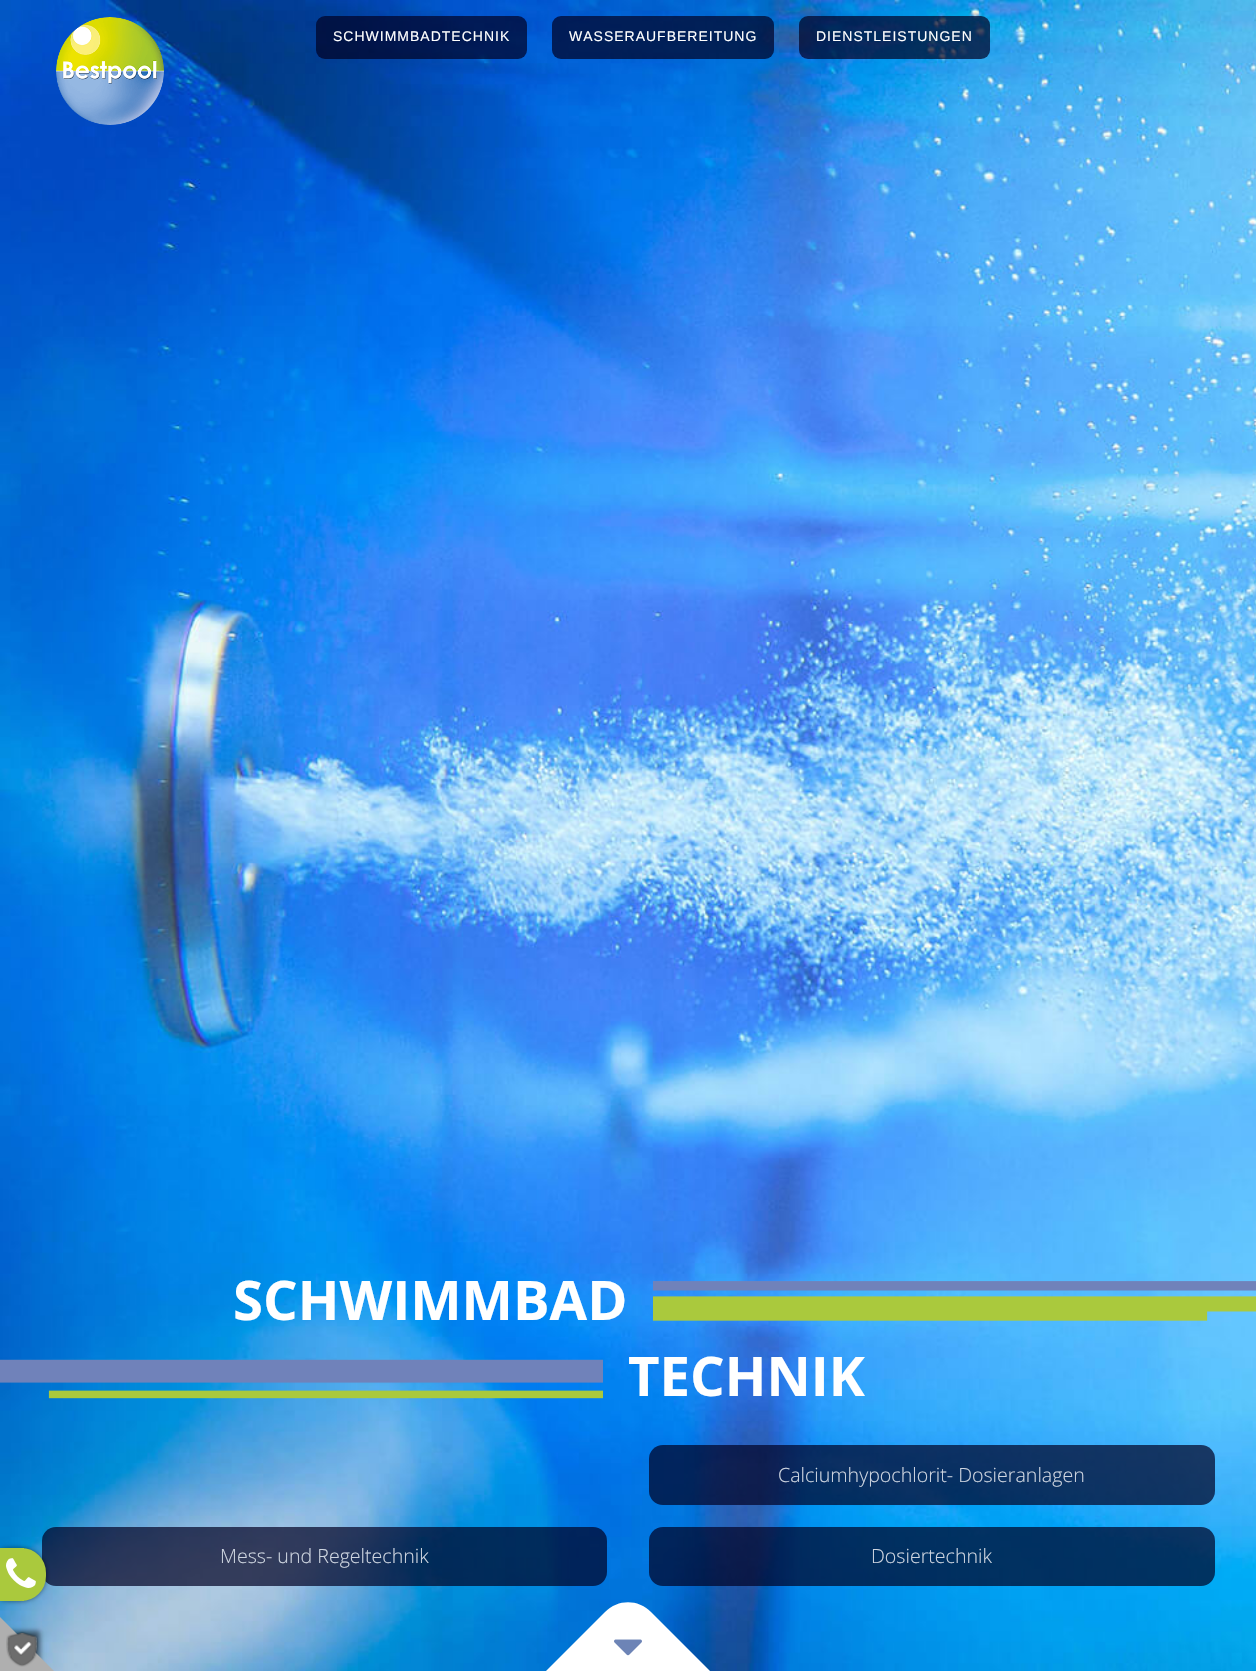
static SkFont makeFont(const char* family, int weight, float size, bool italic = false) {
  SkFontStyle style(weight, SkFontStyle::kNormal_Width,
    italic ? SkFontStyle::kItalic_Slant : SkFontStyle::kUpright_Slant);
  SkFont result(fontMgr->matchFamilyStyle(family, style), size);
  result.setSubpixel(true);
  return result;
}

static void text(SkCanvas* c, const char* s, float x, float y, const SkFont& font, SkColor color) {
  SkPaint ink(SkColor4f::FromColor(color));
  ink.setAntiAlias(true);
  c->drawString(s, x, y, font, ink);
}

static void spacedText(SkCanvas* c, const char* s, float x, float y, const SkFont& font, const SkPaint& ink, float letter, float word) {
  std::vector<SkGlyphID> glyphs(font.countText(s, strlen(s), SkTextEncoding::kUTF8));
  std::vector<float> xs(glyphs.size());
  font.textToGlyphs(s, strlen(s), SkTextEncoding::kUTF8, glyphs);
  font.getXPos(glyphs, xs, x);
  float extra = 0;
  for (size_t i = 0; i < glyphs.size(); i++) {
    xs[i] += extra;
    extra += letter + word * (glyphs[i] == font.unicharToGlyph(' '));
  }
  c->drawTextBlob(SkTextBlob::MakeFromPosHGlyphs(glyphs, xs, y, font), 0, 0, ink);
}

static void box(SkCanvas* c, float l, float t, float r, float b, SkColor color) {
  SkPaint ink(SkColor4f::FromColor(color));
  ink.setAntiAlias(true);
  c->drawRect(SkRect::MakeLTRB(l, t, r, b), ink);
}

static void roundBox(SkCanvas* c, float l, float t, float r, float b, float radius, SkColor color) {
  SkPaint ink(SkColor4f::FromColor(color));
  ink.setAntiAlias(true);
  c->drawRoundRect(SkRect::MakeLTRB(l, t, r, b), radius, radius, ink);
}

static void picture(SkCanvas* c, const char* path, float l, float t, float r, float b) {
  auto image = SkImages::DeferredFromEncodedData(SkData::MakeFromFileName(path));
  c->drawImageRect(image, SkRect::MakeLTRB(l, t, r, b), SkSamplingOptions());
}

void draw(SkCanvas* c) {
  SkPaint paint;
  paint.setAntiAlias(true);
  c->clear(0xffffffff);
  picture(c, "img_02.png", 0, 0, 1256, 1671);
  picture(c, "img_01.png", 56, 17, 164, 125);
  roundBox(c, 316, 16, 527, 59, 9, 0xb3000022);
  SkFont face1 = makeFont("Liberation Sans", 400, 14);
  paint.setColor(0xffffffff);
  spacedText(c, "SCHWIMMBADTECHNIK", 333, 41, face1, paint, 1, 0);
  roundBox(c, 552, 16, 774, 59, 9, 0xb3000022);
  spacedText(c, "WASSERAUFBEREITUNG", 569, 41, face1, paint, 1, 0);
  roundBox(c, 799, 16, 990, 59, 9, 0xb3000022);
  spacedText(c, "DIENSTLEISTUNGEN", 816, 41, face1, paint, 1, 0);
  SkFont face2 = makeFont("Open Sans", 700, 54.5f);
  text(c, "SCHWIMMBAD", 233, 1320, face2, 0xffffffff);
  picture(c, "img_03.png", 653, 1281, 1256, 1321);
  picture(c, "img_04.png", 0, 1359, 603, 1399);
  text(c, "TECHNIK", 628, 1396, face2, 0xffffffff);
  roundBox(c, 649, 1445, 1215, 1505, 14, 0xb3000022);
  SkFont face3 = makeFont("Open Sans", 300, 19.6f);
  text(c, "Calciumhypochlorit- Dosieranlagen", 778, 1482, face3, 0xffced5e0);
  roundBox(c, 42, 1527, 607, 1586, 14, 0xb3000022);
  text(c, "Mess- und Regeltechnik", 220, 1563, face3, 0xffced5e0);
  roundBox(c, 649, 1527, 1215, 1586, 14, 0xb3000022);
  text(c, "Dosiertechnik", 871, 1563, face3, 0xffced5e0);
  c->drawPath(SkPathBuilder().moveTo(651, 1612).lineTo(713, 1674).lineTo(628, 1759).lineTo(543, 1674).lineTo(605, 1612).cubicTo(618, 1599, 638, 1599, 651, 1612).close().detach(), paint);
  picture(c, "img_05.png", 614, 1639, 642, 1656);
  paint.setColor(0x80000000);
  paint.setMaskFilter(SkMaskFilter::MakeBlur(kNormal_SkBlurStyle, 2.5f));
  c->drawRoundRect(SkRect::MakeLTRB(-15, 1548, 46, 1601), 25, 25, paint);
  paint.setMaskFilter(nullptr);
  paint.setColor(0xffaac93d);
  c->drawPath(SkPathBuilder().moveTo(-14, 1549).lineTo(21, 1549).cubicTo(34.5f, 1549, 45, 1559.5f, 45, 1573).lineTo(45, 1576).cubicTo(45, 1589.5f, 34.5f, 1600, 21, 1600).lineTo(-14, 1600).close().detach(), paint);
  paint.setStyle(SkPaint::kStroke_Style);
  paint.setStrokeWidth(2);
  c->drawPath(SkPathBuilder().moveTo(-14, 1549).lineTo(21, 1549).cubicTo(34.5f, 1549, 45, 1559.5f, 45, 1573).lineTo(45, 1576).cubicTo(45, 1589.5f, 34.5f, 1600, 21, 1600).lineTo(-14, 1600).close().detach(), paint);
  box(c, 21, 1548, 24, 1549, 0xffaac93d);
  box(c, 22, 1600, 24, 1601, 0xffaac93d);
  picture(c, "img_06.png", 6, 1558, 36, 1588);
  paint.setStyle(SkPaint::kFill_Style);
  paint.setColor(0x80000000);
  paint.setMaskFilter(SkMaskFilter::MakeBlur(kNormal_SkBlurStyle, 2.5f));
  c->drawRect(SkRect::MakeLTRB(-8, 1631, 40, 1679), paint);
  paint.setMaskFilter(nullptr);
  paint.setColor(0xffafafaf);
  c->drawPath(SkPathBuilder().moveTo(0, 1617).lineTo(54, 1671).lineTo(0, 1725).lineTo(-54, 1671).close().detach(), paint);
  picture(c, "img_07.png", 6, 1631, 39, 1667);
}
